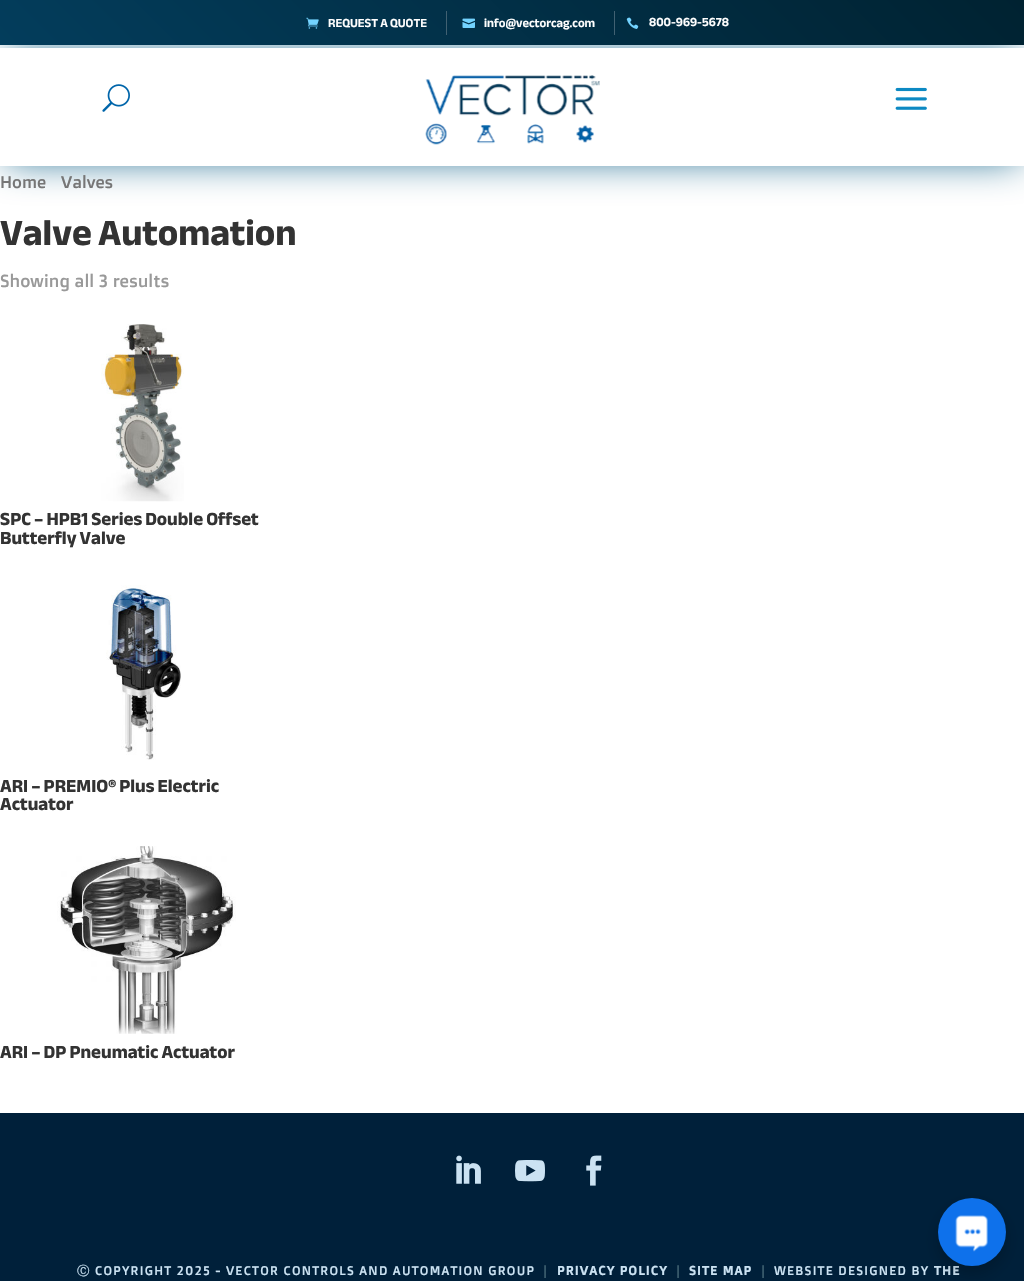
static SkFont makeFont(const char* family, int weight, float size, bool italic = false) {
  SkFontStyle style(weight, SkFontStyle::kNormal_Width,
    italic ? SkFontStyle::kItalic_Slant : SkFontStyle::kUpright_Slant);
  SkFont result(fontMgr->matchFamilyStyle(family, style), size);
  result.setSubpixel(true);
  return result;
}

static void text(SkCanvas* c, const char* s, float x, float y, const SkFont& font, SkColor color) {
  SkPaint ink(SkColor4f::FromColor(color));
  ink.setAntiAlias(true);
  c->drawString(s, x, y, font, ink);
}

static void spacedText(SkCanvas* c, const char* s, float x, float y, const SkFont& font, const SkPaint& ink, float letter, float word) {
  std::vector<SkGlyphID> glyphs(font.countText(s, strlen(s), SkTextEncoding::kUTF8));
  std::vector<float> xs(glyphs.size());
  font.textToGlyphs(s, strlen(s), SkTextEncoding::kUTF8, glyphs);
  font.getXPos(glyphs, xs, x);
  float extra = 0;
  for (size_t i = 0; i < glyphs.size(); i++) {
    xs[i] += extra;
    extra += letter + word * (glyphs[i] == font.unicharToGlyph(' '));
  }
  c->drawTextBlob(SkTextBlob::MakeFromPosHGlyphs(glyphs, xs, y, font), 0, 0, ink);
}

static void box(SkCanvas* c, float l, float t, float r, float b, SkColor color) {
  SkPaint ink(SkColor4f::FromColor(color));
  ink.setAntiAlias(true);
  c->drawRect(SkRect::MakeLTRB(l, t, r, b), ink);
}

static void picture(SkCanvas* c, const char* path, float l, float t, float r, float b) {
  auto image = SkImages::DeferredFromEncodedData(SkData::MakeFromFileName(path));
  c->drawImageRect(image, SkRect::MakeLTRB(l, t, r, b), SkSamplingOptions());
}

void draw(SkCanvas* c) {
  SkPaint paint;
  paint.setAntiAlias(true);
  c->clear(0xffffffff);
  c->save();
  c->clipPath(SkPathBuilder(SkPathFillType::kEvenOdd).moveTo(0, 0).lineTo(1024, 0).lineTo(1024, 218).lineTo(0, 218).close().moveTo(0, 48).lineTo(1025, 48).lineTo(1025, 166).lineTo(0, 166).close().detach(), true);
  paint.setColor(0xff19698e);
  paint.setMaskFilter(SkMaskFilter::MakeBlur(kNormal_SkBlurStyle, 19));
  c->drawRect(SkRect::MakeLTRB(6, 54, 1019, 160), paint);
  paint.setMaskFilter(nullptr);
  c->restore();
  picture(c, "img_01.png", 425, 75, 600, 145);
  picture(c, "img_02.png", 102, 84, 130, 112);
  picture(c, "img_03.png", 895, 87, 927, 110);
  {
    const SkColor colors[] = {0xff033d5c, 0xff002231};
    const float stops[] = {0, 1};
    const SkPoint ends[] = {{245, 290}, {780, -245}};
    paint.setShader(SkGradientShader::MakeLinear(ends, colors, stops, 2, SkTileMode::kClamp));
    paint.setAlpha(255);
  }
  c->drawRect(SkRect::MakeLTRB(0, 0, 1024, 45), paint);
  picture(c, "img_04.png", 306, 17, 319, 29);
  SkFont face1 = makeFont("Anek Bangla", 600, 12.5f);
  text(c, "REQUEST A QUOTE", 328, 27, face1, 0xffffffff);
  box(c, 446, 11, 447, 35, 0xff416172);
  picture(c, "img_05.png", 462, 18, 475, 28);
  text(c, "info@vectorcag.com", 484, 27, face1, 0xffffffff);
  box(c, 614, 11, 615, 35, 0xff416172);
  picture(c, "img_06.png", 626, 17, 639, 29);
  text(c, "800-969-5678", 649, 26, face1, 0xffffffff);
  SkFont face2 = makeFont("Doppio One", 400, 17);
  text(c, "Home", 0, 188, face2, 0xff767676);
  text(c, "Valves", 61, 188, face2, 0xff767676);
  SkFont face3 = makeFont("Anek Bangla", 700, 37.5f);
  text(c, "Valve Automation", 0, 245, face3, 0xff333333);
  SkFont face4 = makeFont("Doppio One", 400, 17.5f);
  text(c, "Showing all 3 results", 0, 287, face4, 0xff999999);
  picture(c, "img_07.png", 101, 324, 184, 502);
  SkFont face5 = makeFont("Anek Bangla", 700, 18.75f);
  text(c, "SPC – HPB1 Series Double Offset", 0, 525, face5, 0xff333333);
  text(c, "Butterfly Valve", 0, 544, face5, 0xff333333);
  picture(c, "img_08.png", 106, 585, 181, 760);
  text(c, "ARI – PREMIO® Plus Electric", 0, 792, face5, 0xff333333);
  text(c, "Actuator", 0, 810, face5, 0xff333333);
  picture(c, "img_09.png", 57, 846, 236, 1034);
  text(c, "ARI – DP Pneumatic Actuator", 0, 1058, face5, 0xff333333);
  box(c, 0, 1113, 1024, 1281, 0xff00203a);
  picture(c, "img_10.png", 456, 1155, 481, 1184);
  picture(c, "img_11.png", 515, 1160, 545, 1182);
  picture(c, "img_12.png", 586, 1155, 602, 1186);
  SkFont face6 = makeFont("WenQuanYi Zen Hei", 500, 12.5f);
  paint.setShader(nullptr);
  paint.setColor(0xffcbe2f2);
  spacedText(c, "Ⓒ", 77, 1275, face6, paint, 1.25f, 0);
  SkFont face7 = makeFont("Doppio One", 400, 12.5f);
  spacedText(c, "COPYRIGHT 2025 - VECTOR CONTROLS AND AUTOMATION GROUP", 95, 1275, face7, paint, 1.25f, 0);
  paint.setColor(0xff406272);
  spacedText(c, "|", 543, 1275, face7, paint, 1.25f, 0);
  SkFont face8 = makeFont("Doppio One", 700, 12.5f);
  paint.setColor(0xffcbe2f2);
  spacedText(c, "PRIVACY POLICY", 557, 1275, face8, paint, 1.25f, 0);
  paint.setColor(0xff406272);
  spacedText(c, "|", 676, 1275, face7, paint, 1.25f, 0);
  paint.setColor(0xffcbe2f2);
  spacedText(c, "SITE MAP", 689, 1275, face8, paint, 1.25f, 0);
  paint.setColor(0xff406272);
  spacedText(c, "|", 761, 1275, face7, paint, 1.25f, 0);
  paint.setColor(0xffcbe2f2);
  spacedText(c, "WEBSITE DESIGNED BY", 774, 1275, face7, paint, 1.25f, 0);
  spacedText(c, "THE", 934, 1275, face8, paint, 1.25f, 0);
  paint.setColor(0x33000000);
  paint.setMaskFilter(SkMaskFilter::MakeBlur(kNormal_SkBlurStyle, 7.5f));
  c->drawRoundRect(SkRect::MakeLTRB(938, 1205, 1006, 1274), 34, 34, paint);
  paint.setMaskFilter(nullptr);
  paint.setColor(0xff0e71eb);
  c->drawCircle(972, 1232, 34, paint);
  picture(c, "img_13.png", 955, 1215, 988, 1252);
}
